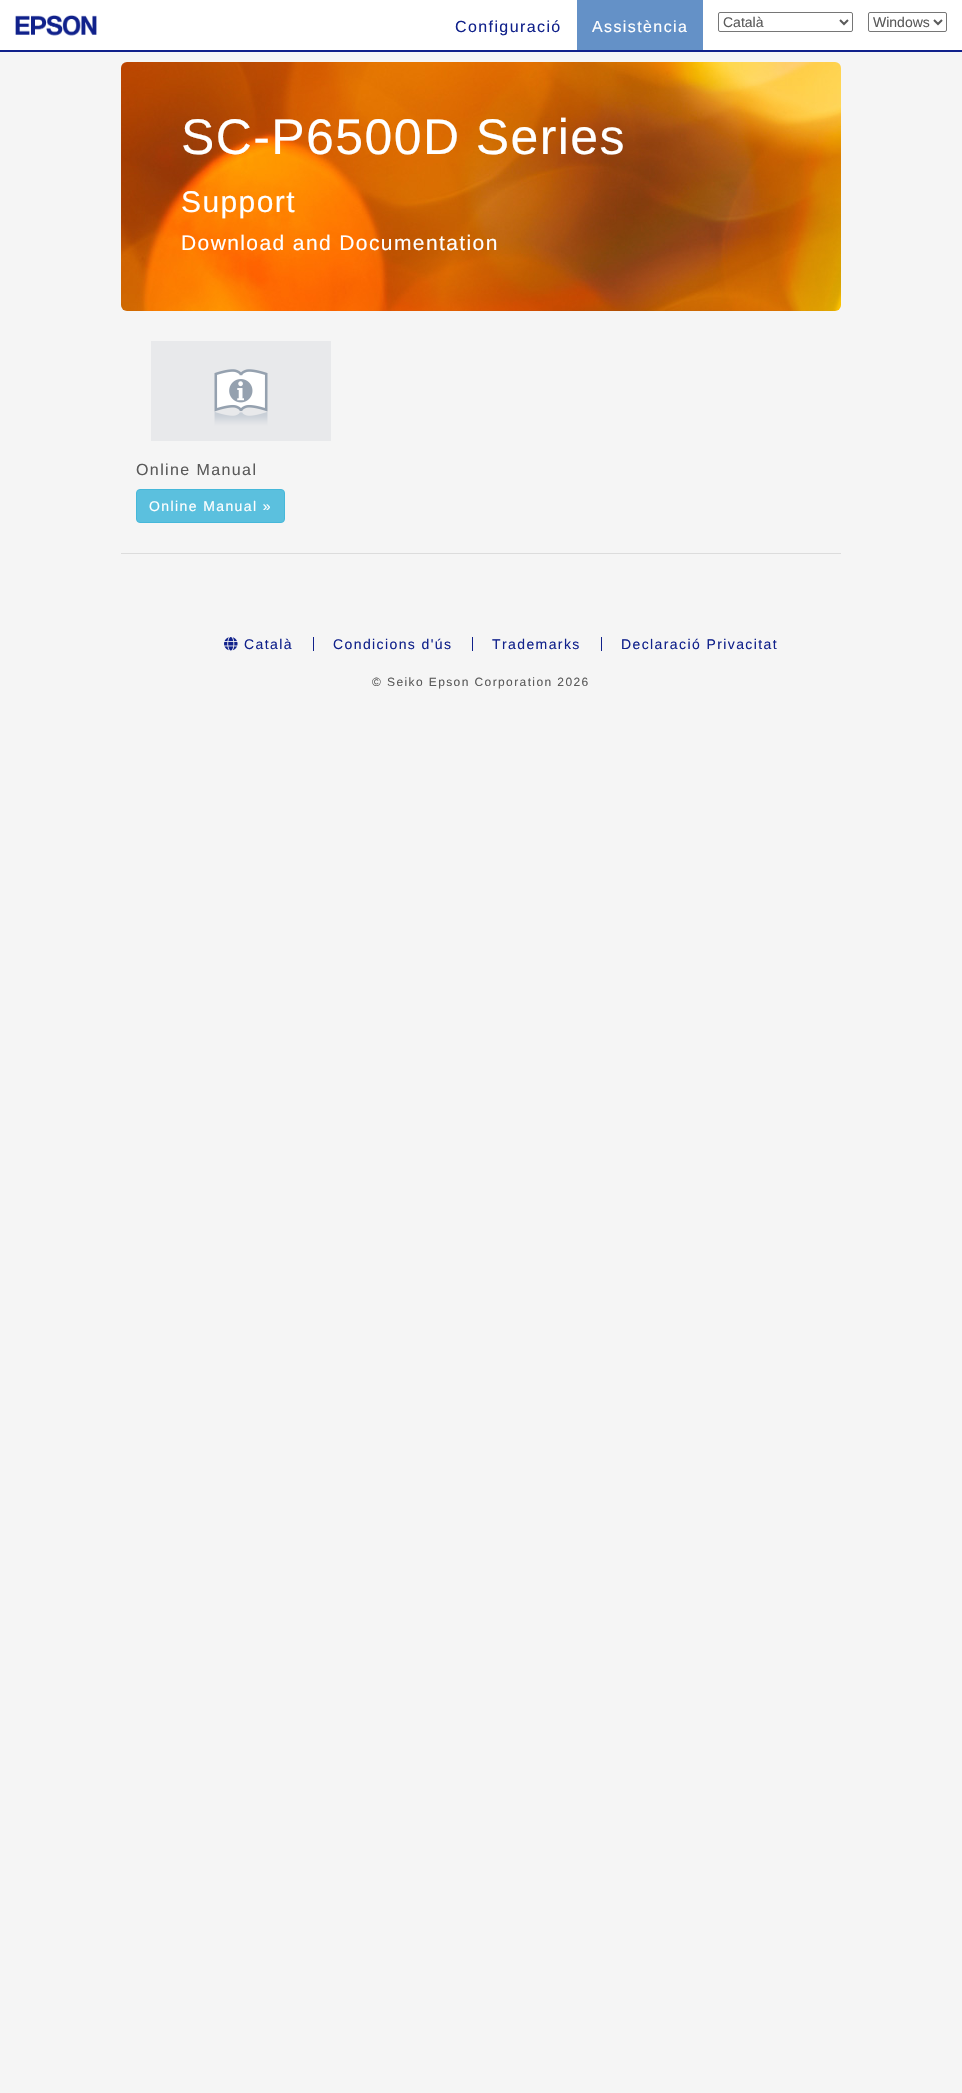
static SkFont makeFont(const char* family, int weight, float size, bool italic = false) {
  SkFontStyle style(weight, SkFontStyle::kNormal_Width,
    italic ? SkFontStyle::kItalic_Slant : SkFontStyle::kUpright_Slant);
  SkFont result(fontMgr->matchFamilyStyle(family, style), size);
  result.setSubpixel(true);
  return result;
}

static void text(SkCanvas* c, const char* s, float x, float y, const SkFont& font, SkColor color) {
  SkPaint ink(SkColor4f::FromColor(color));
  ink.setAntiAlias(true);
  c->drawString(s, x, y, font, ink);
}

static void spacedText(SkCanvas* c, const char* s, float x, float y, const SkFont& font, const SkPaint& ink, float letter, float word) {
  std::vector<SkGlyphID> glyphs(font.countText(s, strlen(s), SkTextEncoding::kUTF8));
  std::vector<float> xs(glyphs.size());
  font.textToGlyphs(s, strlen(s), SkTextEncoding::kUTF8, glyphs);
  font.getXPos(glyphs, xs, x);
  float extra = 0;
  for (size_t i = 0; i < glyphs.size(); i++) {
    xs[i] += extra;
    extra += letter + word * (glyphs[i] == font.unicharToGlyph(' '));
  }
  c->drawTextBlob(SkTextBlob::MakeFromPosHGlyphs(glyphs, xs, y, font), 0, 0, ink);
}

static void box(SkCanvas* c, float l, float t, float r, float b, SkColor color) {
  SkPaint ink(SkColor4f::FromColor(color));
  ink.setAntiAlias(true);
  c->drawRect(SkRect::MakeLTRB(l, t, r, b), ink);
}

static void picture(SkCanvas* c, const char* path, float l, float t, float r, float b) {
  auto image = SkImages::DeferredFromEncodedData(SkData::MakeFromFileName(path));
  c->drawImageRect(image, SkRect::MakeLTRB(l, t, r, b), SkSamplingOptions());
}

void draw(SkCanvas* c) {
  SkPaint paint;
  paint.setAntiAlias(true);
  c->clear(0xfff5f5f5);
  box(c, 0, 0, 962, 50, 0xffffffff);
  box(c, 0, 50, 962, 52, 0xff10218b);
  picture(c, "img_01.png", 15, 15, 97, 36);
  SkFont face1 = makeFont("Liberation Sans", 400, 16);
  paint.setColor(0xff10218b);
  spacedText(c, "Configuració", 455, 32, face1, paint, 1.4f, 0);
  box(c, 577, 0, 703, 50, 0xff6491c7);
  paint.setColor(0xffffffff);
  spacedText(c, "Assistència", 592, 32, face1, paint, 1.4f, 0);
  paint.setStyle(SkPaint::kStroke_Style);
  paint.setStrokeWidth(1);
  paint.setColor(0xff767676);
  c->drawRoundRect(SkRect::MakeLTRB(718.5f, 12.5f, 852.5f, 31.5f), 1.5f, 1.5f, paint);
  paint.setStrokeWidth(2);
  paint.setColor(0xff5a5a5a);
  c->drawPath(SkPathBuilder().moveTo(840, 20).lineTo(844, 24).lineTo(848, 20).detach(), paint);
  SkFont face2 = makeFont("Liberation Sans", 400, 14);
  text(c, "Català", 723, 27, face2, 0xff5a5a5a);
  paint.setStrokeWidth(1);
  paint.setColor(0xff767676);
  c->drawRoundRect(SkRect::MakeLTRB(868.5f, 12.5f, 946.5f, 31.5f), 1.5f, 1.5f, paint);
  paint.setStrokeWidth(2);
  paint.setColor(0xff5a5a5a);
  c->drawPath(SkPathBuilder().moveTo(934, 20).lineTo(938, 24).lineTo(942, 20).detach(), paint);
  text(c, "Windows", 873, 27, face2, 0xff5a5a5a);
  picture(c, "img_02.png", 121, 62, 841, 311);
  SkFont face3 = makeFont("Liberation Sans", 400, 50);
  paint.setStyle(SkPaint::kFill_Style);
  paint.setColor(0xffffffff);
  spacedText(c, "SC-P6500D Series", 181, 154, face3, paint, 1.4f, 0);
  SkFont face4 = makeFont("Liberation Sans", 400, 30);
  spacedText(c, "Support", 181, 212, face4, paint, 1.4f, 0);
  SkFont face5 = makeFont("Liberation Sans", 400, 21);
  spacedText(c, "Download and Documentation", 181, 250, face5, paint, 1.4f, 0);
  picture(c, "img_03.png", 151, 341, 331, 441);
  paint.setColor(0xff5a5a5a);
  spacedText(c, "Online Manual", 136, 475, face1, paint, 1.4f, 0);
  paint.setColor(0xff5bc0de);
  c->drawRoundRect(SkRect::MakeLTRB(136.5f, 489.5f, 284.5f, 522.5f), 3.5f, 3.5f, paint);
  paint.setStyle(SkPaint::kStroke_Style);
  paint.setStrokeWidth(1);
  paint.setColor(0xff46b8da);
  c->drawRoundRect(SkRect::MakeLTRB(136.5f, 489.5f, 284.5f, 522.5f), 3.5f, 3.5f, paint);
  paint.setStyle(SkPaint::kFill_Style);
  paint.setColor(0xffffffff);
  spacedText(c, "Online Manual »", 149, 511, face2, paint, 1.4f, 0);
  box(c, 121, 553, 841, 554, 0xffdcdcdc);
  picture(c, "img_04.png", 224, 637, 238, 651);
  paint.setColor(0xff10218b);
  spacedText(c, "Català", 244, 649, face2, paint, 1.4f, 0);
  box(c, 313, 637, 314, 651, 0xff10218b);
  spacedText(c, "Condicions d'ús", 333, 649, face2, paint, 1.4f, 0);
  box(c, 472, 637, 473, 651, 0xff10218b);
  spacedText(c, "Trademarks", 492, 649, face2, paint, 1.4f, 0);
  box(c, 601, 637, 602, 651, 0xff10218b);
  spacedText(c, "Declaració Privacitat", 621, 649, face2, paint, 1.4f, 0);
  SkFont face6 = makeFont("Liberation Sans", 400, 12);
  paint.setColor(0xff5a5a5a);
  spacedText(c, "© Seiko Epson Corporation 2026", 372, 686, face6, paint, 1.4f, 0);
}
